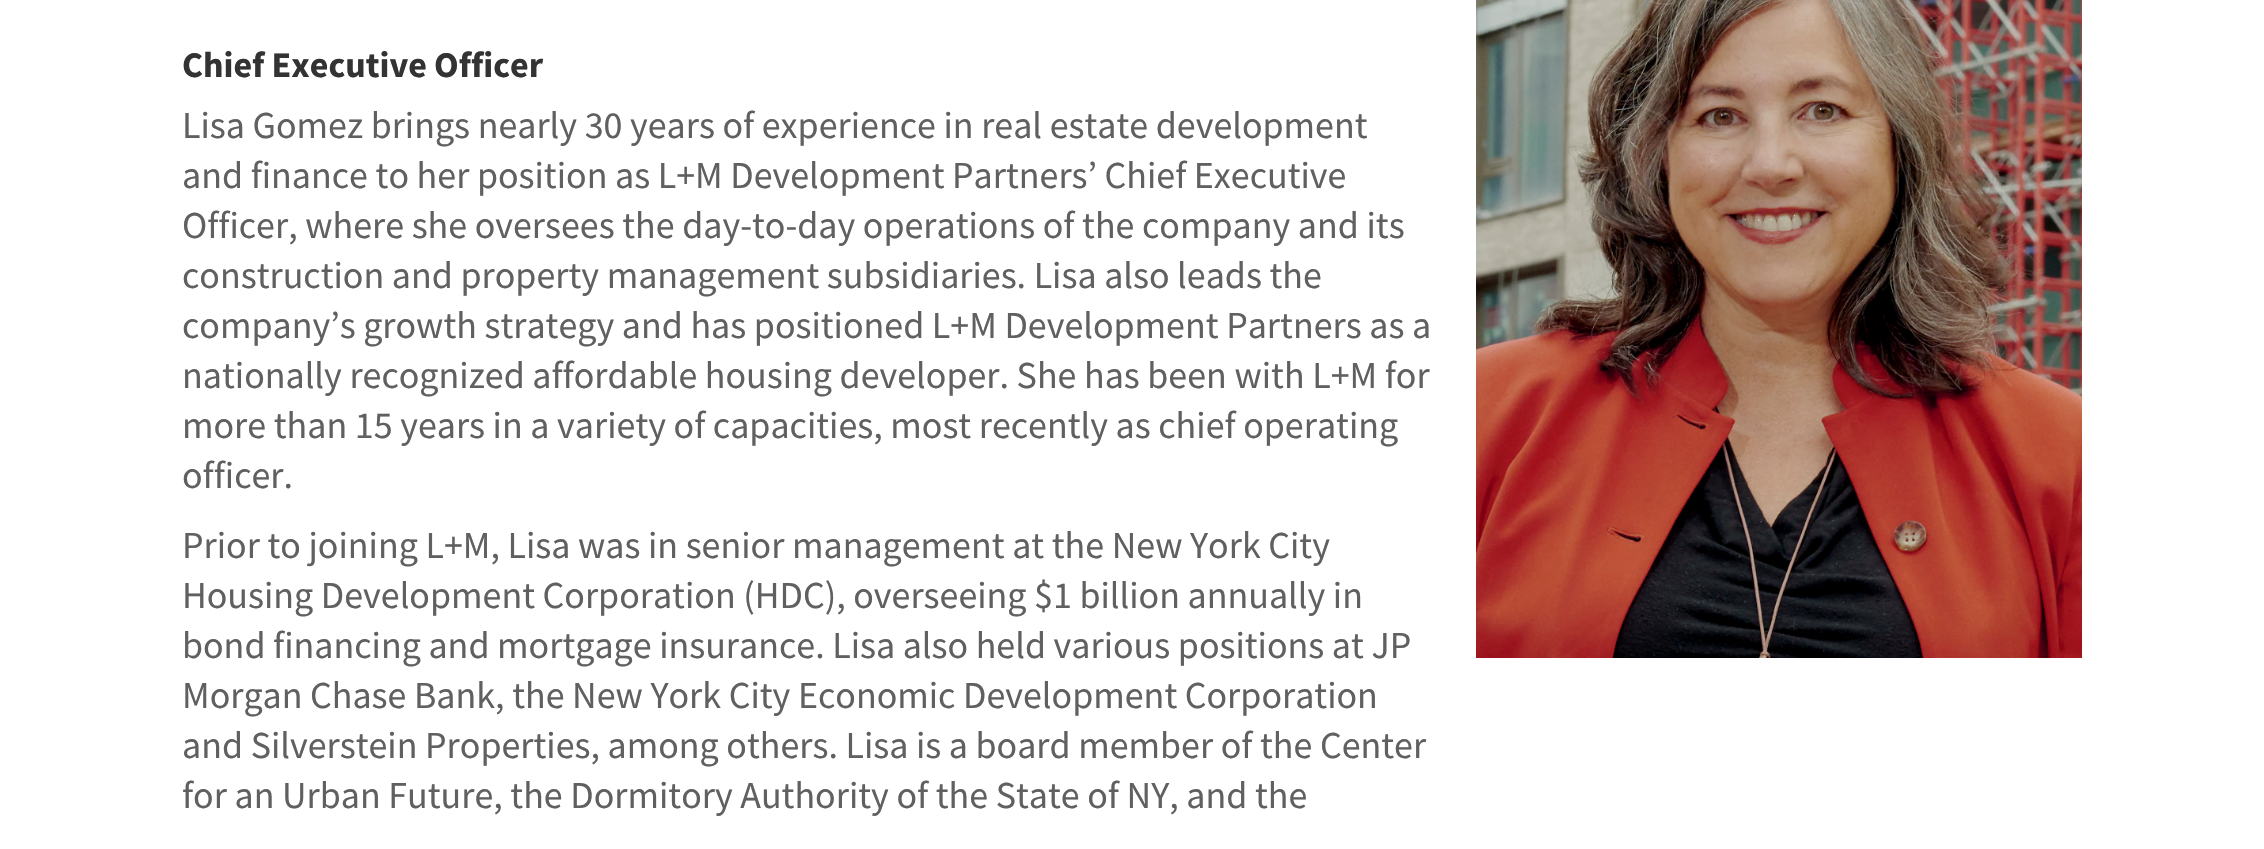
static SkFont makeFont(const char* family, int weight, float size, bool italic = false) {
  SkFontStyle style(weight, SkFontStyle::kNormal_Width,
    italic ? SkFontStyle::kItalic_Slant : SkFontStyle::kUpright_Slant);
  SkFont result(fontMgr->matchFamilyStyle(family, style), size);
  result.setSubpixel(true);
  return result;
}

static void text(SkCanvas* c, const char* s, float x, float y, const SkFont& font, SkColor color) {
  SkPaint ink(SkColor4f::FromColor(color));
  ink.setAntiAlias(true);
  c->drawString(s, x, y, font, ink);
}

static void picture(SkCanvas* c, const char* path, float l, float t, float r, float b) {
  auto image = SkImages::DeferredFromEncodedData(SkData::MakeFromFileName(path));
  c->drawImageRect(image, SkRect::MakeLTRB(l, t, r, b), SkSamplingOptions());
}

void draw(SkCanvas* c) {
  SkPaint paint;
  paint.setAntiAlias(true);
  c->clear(0xffffffff);
  SkFont face1 = makeFont("Source Sans Pro", 700, 36);
  text(c, "Chief Executive Officer", 182, 77, face1, 0xff333333);
  SkFont face2 = makeFont("Source Sans Pro", 400, 38);
  text(c, "Lisa Gomez brings nearly 30 years of experience in real estate development", 182, 138, face2, 0xff606060);
  text(c, "and finance to her position as L+M Development Partners’ Chief Executive", 182, 188, face2, 0xff606060);
  text(c, "Officer, where she oversees the day-to-day operations of the company and its", 182, 238, face2, 0xff606060);
  text(c, "construction and property management subsidiaries. Lisa also leads the", 182, 288, face2, 0xff606060);
  text(c, "company’s growth strategy and has positioned L+M Development Partners as a", 182, 338, face2, 0xff606060);
  text(c, "nationally recognized affordable housing developer. She has been with L+M for", 182, 388, face2, 0xff606060);
  text(c, "more than 15 years in a variety of capacities, most recently as chief operating", 182, 438, face2, 0xff606060);
  text(c, "officer.", 182, 488, face2, 0xff606060);
  text(c, "Prior to joining L+M, Lisa was in senior management at the New York City", 182, 558, face2, 0xff606060);
  text(c, "Housing Development Corporation (HDC), overseeing $1 billion annually in", 182, 608, face2, 0xff606060);
  text(c, "bond financing and mortgage insurance. Lisa also held various positions at JP", 182, 658, face2, 0xff606060);
  text(c, "Morgan Chase Bank, the New York City Economic Development Corporation", 182, 708, face2, 0xff606060);
  text(c, "and Silverstein Properties, among others. Lisa is a board member of the Center", 182, 758, face2, 0xff606060);
  text(c, "for an Urban Future, the Dormitory Authority of the State of NY, and the", 182, 808, face2, 0xff606060);
  picture(c, "img_01.png", 1476, 0, 2082, 658);
}
